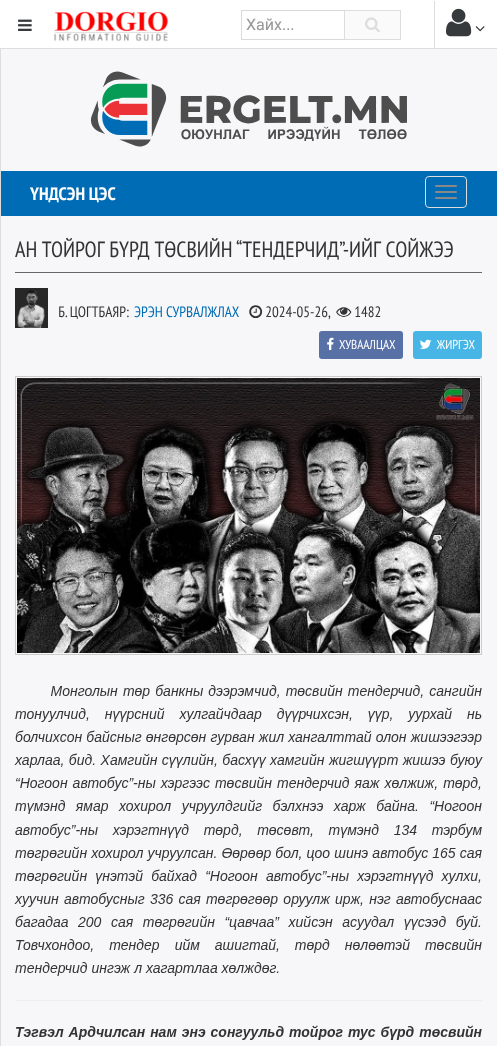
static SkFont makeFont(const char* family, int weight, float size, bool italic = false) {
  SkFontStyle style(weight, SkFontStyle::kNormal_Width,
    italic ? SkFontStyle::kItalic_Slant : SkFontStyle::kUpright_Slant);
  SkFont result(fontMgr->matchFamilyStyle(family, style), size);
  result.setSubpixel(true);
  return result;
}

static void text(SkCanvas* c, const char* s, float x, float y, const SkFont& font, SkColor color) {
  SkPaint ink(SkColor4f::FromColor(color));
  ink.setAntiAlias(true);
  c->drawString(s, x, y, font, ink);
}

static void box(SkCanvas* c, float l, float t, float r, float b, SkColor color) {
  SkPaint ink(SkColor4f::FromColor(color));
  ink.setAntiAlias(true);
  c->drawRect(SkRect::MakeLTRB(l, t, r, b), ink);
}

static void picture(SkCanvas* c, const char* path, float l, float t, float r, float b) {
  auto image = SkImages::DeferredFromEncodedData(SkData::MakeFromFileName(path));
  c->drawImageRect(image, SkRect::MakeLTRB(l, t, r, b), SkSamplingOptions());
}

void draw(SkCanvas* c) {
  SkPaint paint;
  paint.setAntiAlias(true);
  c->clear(0xfff7f7f9);
  box(c, 0, 0, 497, 48, 0xffffffff);
  box(c, 0, 48, 497, 49, 0xffdddddd);
  picture(c, "img_01.png", 18, 19, 32, 31);
  picture(c, "img_02.png", 54, 11, 168, 42);
  paint.setStyle(SkPaint::kStroke_Style);
  paint.setStrokeWidth(1);
  paint.setColor(0xffd9d9d9);
  c->drawRect(SkRect::MakeLTRB(241.5f, 10.5f, 400.5f, 39.5f), paint);
  SkFont face1 = makeFont("Roboto", 400, 16);
  text(c, "Хайх...", 246, 30, face1, 0xff999999);
  paint.setStyle(SkPaint::kFill_Style);
  paint.setColor(0xfffafafa);
  c->drawRect(SkRect::MakeLTRB(344.5f, 10.5f, 400.5f, 39.5f), paint);
  paint.setStyle(SkPaint::kStroke_Style);
  paint.setColor(0xffdddddd);
  c->drawRect(SkRect::MakeLTRB(344.5f, 10.5f, 400.5f, 39.5f), paint);
  picture(c, "img_03.png", 365, 17, 380, 33);
  box(c, 434, 1, 435, 49, 0xffdddddd);
  picture(c, "img_04.png", 446, 8, 472, 37);
  picture(c, "img_05.png", 475, 26, 485, 32);
  box(c, 0, 49, 1, 1046, 0xffdddddd);
  picture(c, "img_06.png", 1, 71, 497, 1040);
}
